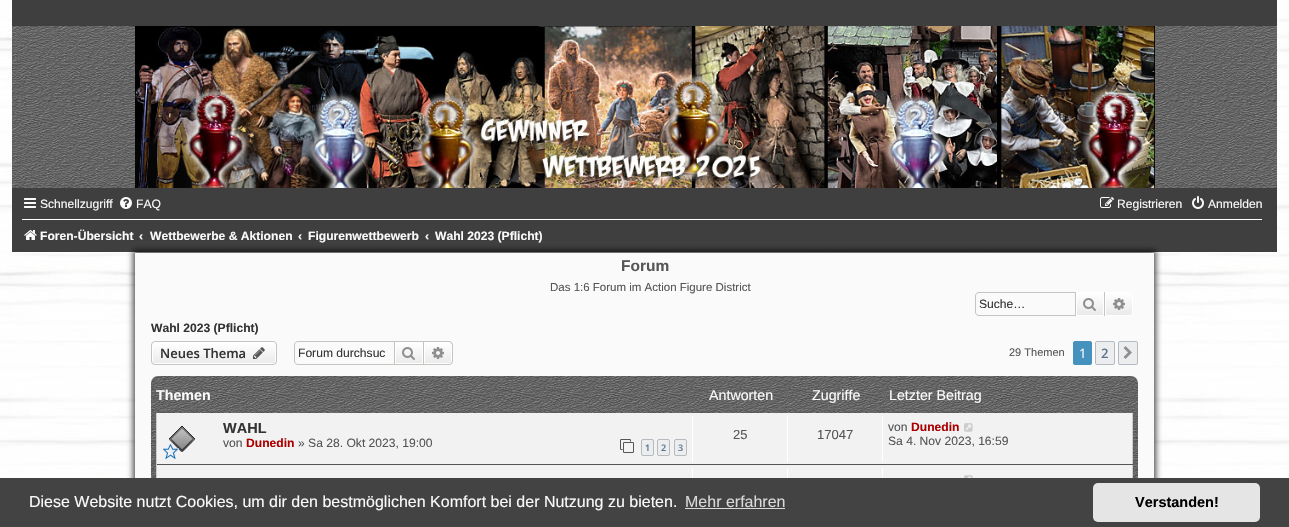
static SkFont makeFont(const char* family, int weight, float size, bool italic = false) {
  SkFontStyle style(weight, SkFontStyle::kNormal_Width,
    italic ? SkFontStyle::kItalic_Slant : SkFontStyle::kUpright_Slant);
  SkFont result(fontMgr->matchFamilyStyle(family, style), size);
  result.setSubpixel(true);
  return result;
}

static void text(SkCanvas* c, const char* s, float x, float y, const SkFont& font, SkColor color) {
  SkPaint ink(SkColor4f::FromColor(color));
  ink.setAntiAlias(true);
  c->drawString(s, x, y, font, ink);
}

static void box(SkCanvas* c, float l, float t, float r, float b, SkColor color) {
  SkPaint ink(SkColor4f::FromColor(color));
  ink.setAntiAlias(true);
  c->drawRect(SkRect::MakeLTRB(l, t, r, b), ink);
}

static void roundBox(SkCanvas* c, float l, float t, float r, float b, float radius, SkColor color) {
  SkPaint ink(SkColor4f::FromColor(color));
  ink.setAntiAlias(true);
  c->drawRoundRect(SkRect::MakeLTRB(l, t, r, b), radius, radius, ink);
}

static void picture(SkCanvas* c, const char* path, float l, float t, float r, float b) {
  auto image = SkImages::DeferredFromEncodedData(SkData::MakeFromFileName(path));
  c->drawImageRect(image, SkRect::MakeLTRB(l, t, r, b), SkSamplingOptions());
}

void draw(SkCanvas* c) {
  SkPaint paint;
  paint.setAntiAlias(true);
  c->clear(0xffffffff);
  picture(c, "img_01.png", 0, 0, 1289, 478);
  picture(c, "img_02.png", 12, 26, 1277, 188);
  box(c, 12, 0, 1277, 26, 0xff3f3f3f);
  picture(c, "img_03.png", 135, 26, 1155, 188);
  box(c, 12, 188, 1277, 252, 0xff3f3f3f);
  picture(c, "img_04.png", 24, 198, 36, 208);
  SkFont face1 = makeFont("Liberation Sans", 400, 12.1f);
  text(c, "Schnellzugriff", 40, 208, face1, 0xfffafafa);
  picture(c, "img_05.png", 120, 197, 132, 209);
  text(c, "FAQ", 136, 208, face1, 0xfffafafa);
  picture(c, "img_06.png", 1100, 197, 1114, 208);
  text(c, "Registrieren", 1117, 208, face1, 0xfffafafa);
  picture(c, "img_07.png", 1192, 196, 1204, 209);
  text(c, "Anmelden", 1208, 208, face1, 0xfffafafa);
  box(c, 22, 219, 1262, 220, 0xffffffff);
  picture(c, "img_08.png", 24, 230, 37, 240);
  paint.setColor(0xb3020202);
  paint.setMaskFilter(SkMaskFilter::MakeBlur(kNormal_SkBlurStyle, 3));
  c->drawRect(SkRect::MakeLTRB(133, 250, 1156, 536), paint);
  paint.setMaskFilter(nullptr);
  SkFont face2 = makeFont("Liberation Sans", 700, 12.1f);
  text(c, "Foren-Übersicht", 40, 240, face2, 0xfffafafa);
  text(c, "‹", 139, 240, face2, 0xfffafafa);
  text(c, "Wettbewerbe & Aktionen", 150, 240, face2, 0xfffafafa);
  text(c, "‹", 298, 240, face2, 0xfffafafa);
  text(c, "Figurenwettbewerb", 308, 240, face2, 0xfffafafa);
  text(c, "‹", 425, 240, face2, 0xfffafafa);
  text(c, "Wahl 2023 (Pflicht)", 435, 240, face2, 0xfffafafa);
  box(c, 135, 253, 1154, 478, 0xfffafafa);
  SkFont face3 = makeFont("Liberation Sans", 700, 15.5f);
  text(c, "Forum", 621, 271, face3, 0xff555555);
  SkFont face4 = makeFont("Liberation Sans", 400, 11.5f);
  text(c, "Das 1:6 Forum im Action Figure District", 550, 291, face4, 0xff555555);
  paint.setColor(0xffc7c3bf);
  c->drawPath(SkPathBuilder(SkPathFillType::kEvenOdd).moveTo(979, 292).lineTo(1075, 292).lineTo(1075, 316).lineTo(979, 316).cubicTo(977, 316, 975, 314, 975, 312).lineTo(975, 296).cubicTo(975, 294, 977, 292, 979, 292).close().moveTo(979, 293).lineTo(1075, 293).lineTo(1075, 315).lineTo(979, 315).cubicTo(977, 315, 976, 314, 976, 312).lineTo(976, 296).cubicTo(976, 294, 977, 293, 979, 293).close().detach(), paint);
  text(c, "Suche…", 979, 308, face1, 0xff333333);
  {
    const SkColor colors[] = {0xffffffff, 0xffe9e9e9};
    const float stops[] = {0, 1};
    const SkPoint ends[] = {{1090, 292}, {1090, 316}};
    paint.setShader(SkGradientShader::MakeLinear(ends, colors, stops, 2, SkTileMode::kClamp));
    paint.setAlpha(255);
  }
  c->drawRect(SkRect::MakeLTRB(1077, 293, 1103, 315), paint);
  paint.setStyle(SkPaint::kStroke_Style);
  paint.setStrokeWidth(1);
  paint.setShader(nullptr);
  paint.setColor(0xffffffff);
  c->drawRect(SkRect::MakeLTRB(1076.5f, 292.5f, 1103.5f, 315.5f), paint);
  box(c, 1104, 292, 1105, 316, 0xffc7c3bf);
  box(c, 1075, 292, 1076, 316, 0xffc7c3bf);
  picture(c, "img_09.png", 1083, 298, 1096, 311);
  paint.setStyle(SkPaint::kFill_Style);
  {
    const SkColor colors[] = {0xffffffff, 0xffe9e9e9};
    const float stops[] = {0, 1};
    const SkPoint ends[] = {{1119, 292}, {1119, 316}};
    paint.setShader(SkGradientShader::MakeLinear(ends, colors, stops, 2, SkTileMode::kClamp));
    paint.setAlpha(255);
  }
  c->drawPath(SkPathBuilder().moveTo(1105.5f, 292.5f).lineTo(1129, 292.5f).cubicTo(1131, 292.5f, 1132.5f, 294, 1132.5f, 296).lineTo(1132.5f, 312).cubicTo(1132.5f, 314, 1131, 315.5f, 1129, 315.5f).lineTo(1105.5f, 315.5f).close().detach(), paint);
  paint.setStyle(SkPaint::kStroke_Style);
  paint.setShader(nullptr);
  paint.setColor(0xffffffff);
  c->drawPath(SkPathBuilder().moveTo(1105.5f, 292.5f).lineTo(1129, 292.5f).cubicTo(1131, 292.5f, 1132.5f, 294, 1132.5f, 296).lineTo(1132.5f, 312).cubicTo(1132.5f, 314, 1131, 315.5f, 1129, 315.5f).lineTo(1105.5f, 315.5f).close().detach(), paint);
  picture(c, "img_10.png", 1113, 298, 1125, 310);
  text(c, "Wahl 2023 (Pflicht)", 151, 332, face2, 0xff333333);
  c->save();
  c->clipPath(SkPathBuilder().moveTo(155, 341).lineTo(273, 341).cubicTo(275, 341, 277, 343, 277, 345).lineTo(277, 361).cubicTo(277, 363, 275, 365, 273, 365).lineTo(155, 365).cubicTo(153, 365, 151, 363, 151, 361).lineTo(151, 345).cubicTo(151, 343, 153, 341, 155, 341).close().detach(), true);
  paint.setStyle(SkPaint::kFill_Style);
  {
    const SkColor colors[] = {0xffffffff, 0xffe9e9e9};
    const float stops[] = {0, 1};
    const SkPoint ends[] = {{214, 342}, {214, 364}};
    paint.setShader(SkGradientShader::MakeLinear(ends, colors, stops, 2, SkTileMode::kClamp));
    paint.setAlpha(255);
  }
  c->drawRect(SkRect::MakeLTRB(151, 342, 277, 364), paint);
  c->restore();
  paint.setStyle(SkPaint::kStroke_Style);
  paint.setShader(nullptr);
  paint.setColor(0xffffffff);
  c->drawRoundRect(SkRect::MakeLTRB(152.5f, 342.5f, 275.5f, 363.5f), 2.5f, 2.5f, paint);
  paint.setColor(0xffc7c3bf);
  c->drawRoundRect(SkRect::MakeLTRB(151.5f, 341.5f, 276.5f, 364.5f), 3.5f, 3.5f, paint);
  SkFont face5 = makeFont("Open Sans", 600, 13);
  text(c, "Neues Thema", 160, 358, face5, 0xff333333);
  picture(c, "img_11.png", 253, 347, 265, 359);
  paint.setStyle(SkPaint::kFill_Style);
  c->drawPath(SkPathBuilder(SkPathFillType::kEvenOdd).moveTo(298, 341).lineTo(394, 341).lineTo(394, 365).lineTo(298, 365).cubicTo(296, 365, 294, 363, 294, 361).lineTo(294, 345).cubicTo(294, 343, 296, 341, 298, 341).close().moveTo(298, 342).lineTo(394, 342).lineTo(394, 364).lineTo(298, 364).cubicTo(296, 364, 295, 363, 295, 361).lineTo(295, 345).cubicTo(295, 343, 296, 342, 298, 342).close().detach(), paint);
  text(c, "Forum durchsuc", 298, 357, face1, 0xff333333);
  {
    const SkColor colors[] = {0xffffffff, 0xffe9e9e9};
    const float stops[] = {0, 1};
    const SkPoint ends[] = {{409, 342}, {409, 364}};
    paint.setShader(SkGradientShader::MakeLinear(ends, colors, stops, 2, SkTileMode::kClamp));
    paint.setAlpha(255);
  }
  c->drawRect(SkRect::MakeLTRB(396, 343, 422, 363), paint);
  paint.setStyle(SkPaint::kStroke_Style);
  paint.setShader(nullptr);
  paint.setColor(0xffffffff);
  c->drawRect(SkRect::MakeLTRB(395.5f, 342.5f, 422.5f, 363.5f), paint);
  paint.setColor(0xffc7c3bf);
  c->drawRect(SkRect::MakeLTRB(394.5f, 341.5f, 423.5f, 364.5f), paint);
  picture(c, "img_12.png", 402, 347, 415, 360);
  paint.setStyle(SkPaint::kFill_Style);
  {
    const SkColor colors[] = {0xffffffff, 0xffe9e9e9};
    const float stops[] = {0, 1};
    const SkPoint ends[] = {{438, 342}, {438, 364}};
    paint.setShader(SkGradientShader::MakeLinear(ends, colors, stops, 2, SkTileMode::kClamp));
    paint.setAlpha(255);
  }
  c->drawPath(SkPathBuilder().moveTo(424.5f, 342.5f).lineTo(449, 342.5f).cubicTo(450.5f, 342.5f, 451.5f, 343.5f, 451.5f, 345).lineTo(451.5f, 361).cubicTo(451.5f, 362.5f, 450.5f, 363.5f, 449, 363.5f).lineTo(424.5f, 363.5f).close().detach(), paint);
  paint.setStyle(SkPaint::kStroke_Style);
  paint.setShader(nullptr);
  paint.setColor(0xffffffff);
  c->drawPath(SkPathBuilder().moveTo(424.5f, 342.5f).lineTo(449, 342.5f).cubicTo(450.5f, 342.5f, 451.5f, 343.5f, 451.5f, 345).lineTo(451.5f, 361).cubicTo(451.5f, 362.5f, 450.5f, 363.5f, 449, 363.5f).lineTo(424.5f, 363.5f).close().detach(), paint);
  paint.setStyle(SkPaint::kFill_Style);
  paint.setColor(0xffc7c3bf);
  c->drawPath(SkPathBuilder(SkPathFillType::kEvenOdd).moveTo(424, 341).lineTo(449, 341).cubicTo(451, 341, 453, 343, 453, 345).lineTo(453, 361).cubicTo(453, 363, 451, 365, 449, 365).lineTo(424, 365).close().moveTo(424, 342).lineTo(449, 342).cubicTo(450.5f, 342, 452, 343.5f, 452, 345).lineTo(452, 361).cubicTo(452, 362.5f, 450.5f, 364, 449, 364).lineTo(424, 364).close().detach(), paint);
  picture(c, "img_13.png", 432, 347, 444, 359);
  SkFont face6 = makeFont("Liberation Sans", 400, 11);
  text(c, "29 Themen", 1009, 356, face6, 0xff555555);
  paint.setColor(0xff4692bf);
  c->drawRoundRect(SkRect::MakeLTRB(1073.5f, 341.5f, 1091.5f, 364.5f), 1.5f, 1.5f, paint);
  paint.setStyle(SkPaint::kStroke_Style);
  c->drawRoundRect(SkRect::MakeLTRB(1073.5f, 341.5f, 1091.5f, 364.5f), 1.5f, 1.5f, paint);
  SkFont face7 = makeFont("Open Sans", 400, 13);
  text(c, "1", 1079, 358, face7, 0xfffafafa);
  paint.setStyle(SkPaint::kFill_Style);
  paint.setColor(0xffecedee);
  c->drawRoundRect(SkRect::MakeLTRB(1095.5f, 341.5f, 1114.5f, 364.5f), 1.5f, 1.5f, paint);
  paint.setStyle(SkPaint::kStroke_Style);
  paint.setColor(0xffb4bac0);
  c->drawRoundRect(SkRect::MakeLTRB(1095.5f, 341.5f, 1114.5f, 364.5f), 1.5f, 1.5f, paint);
  text(c, "2", 1101, 358, face5, 0xff5c758c);
  paint.setStyle(SkPaint::kFill_Style);
  paint.setColor(0xffecedee);
  c->drawRoundRect(SkRect::MakeLTRB(1118.5f, 341.5f, 1137.5f, 364.5f), 1.5f, 1.5f, paint);
  paint.setStyle(SkPaint::kStroke_Style);
  paint.setColor(0xffb4bac0);
  c->drawRoundRect(SkRect::MakeLTRB(1118.5f, 341.5f, 1137.5f, 364.5f), 1.5f, 1.5f, paint);
  picture(c, "img_14.png", 1123, 346, 1132, 359);
  picture(c, "img_15.png", 151, 376, 1138, 478);
  SkFont face8 = makeFont("Liberation Sans", 700, 14.25f);
  text(c, "Themen", 156, 400, face8, 0xfffafafa);
  SkFont face9 = makeFont("Liberation Sans", 400, 14.25f);
  text(c, "Antworten", 709, 400, face9, 0xfffafafa);
  text(c, "Zugriffe", 812, 400, face9, 0xfffafafa);
  text(c, "Letzter Beitrag", 889, 400, face9, 0xfffafafa);
  box(c, 157, 413, 1132, 464, 0xfff2f2f2);
  box(c, 1132, 413, 1133, 478, 0xffcccccc);
  box(c, 156, 464, 1133, 465, 0xff555555);
  box(c, 156, 413, 157, 478, 0xffcccccc);
  picture(c, "img_16.png", 169, 426, 195, 453);
  picture(c, "img_17.png", 162, 443, 179, 460);
  SkFont face10 = makeFont("Liberation Sans", 700, 14.5f);
  text(c, "WAHL", 223, 433, face10, 0xff333333);
  text(c, "von", 223, 447, face1, 0xff555555);
  text(c, "Dunedin", 246, 447, face2, 0xffaa0000);
  text(c, "» Sa 28. Okt 2023, 19:00", 298, 447, face1, 0xff555555);
  picture(c, "img_18.png", 620, 439, 634, 453);
  paint.setStyle(SkPaint::kFill_Style);
  paint.setColor(0xffecedee);
  c->drawRoundRect(SkRect::MakeLTRB(641.5f, 439.5f, 653.5f, 455.5f), 1.5f, 1.5f, paint);
  paint.setStyle(SkPaint::kStroke_Style);
  paint.setColor(0xffb4bac0);
  c->drawRoundRect(SkRect::MakeLTRB(641.5f, 439.5f, 653.5f, 455.5f), 1.5f, 1.5f, paint);
  SkFont face11 = makeFont("Open Sans", 600, 9);
  text(c, "1", 645, 451, face11, 0xff5c758c);
  paint.setStyle(SkPaint::kFill_Style);
  paint.setColor(0xffecedee);
  c->drawRoundRect(SkRect::MakeLTRB(657.5f, 439.5f, 669.5f, 455.5f), 1.5f, 1.5f, paint);
  paint.setStyle(SkPaint::kStroke_Style);
  paint.setColor(0xffb4bac0);
  c->drawRoundRect(SkRect::MakeLTRB(657.5f, 439.5f, 669.5f, 455.5f), 1.5f, 1.5f, paint);
  text(c, "2", 661, 451, face11, 0xff5c758c);
  paint.setStyle(SkPaint::kFill_Style);
  paint.setColor(0xffecedee);
  c->drawRoundRect(SkRect::MakeLTRB(674.5f, 439.5f, 686.5f, 455.5f), 1.5f, 1.5f, paint);
  paint.setStyle(SkPaint::kStroke_Style);
  paint.setColor(0xffb4bac0);
  c->drawRoundRect(SkRect::MakeLTRB(674.5f, 439.5f, 686.5f, 455.5f), 1.5f, 1.5f, paint);
  text(c, "3", 678, 451, face11, 0xff5c758c);
  box(c, 692, 416, 693, 462, 0xffffffff);
  SkFont face12 = makeFont("Liberation Sans", 400, 13);
  text(c, "25", 733, 439, face12, 0xff555555);
  box(c, 787, 416, 788, 462, 0xffffffff);
  text(c, "17047", 817, 439, face12, 0xff555555);
  box(c, 882, 416, 883, 462, 0xffffffff);
  text(c, "von", 888, 431, face1, 0xff555555);
  text(c, "Dunedin", 911, 431, face2, 0xffaa0000);
  picture(c, "img_19.png", 964, 423, 973, 432);
  text(c, "Sa 4. Nov 2023, 16:59", 888, 445, face1, 0xff555555);
  box(c, 157, 465, 1132, 478, 0xfff2f2f2);
  box(c, 692, 468, 693, 478, 0xffffffff);
  box(c, 787, 468, 788, 478, 0xffffffff);
  box(c, 882, 468, 883, 478, 0xffffffff);
  picture(c, "img_20.png", 964, 475, 973, 478);
  box(c, 0, 478, 1289, 527, 0xff434343);
  SkFont face13 = makeFont("Liberation Sans", 400, 16);
  text(c, "Diese Website nutzt Cookies, um dir den bestmöglichen Komfort bei der Nutzung zu bieten.", 29, 507, face13, 0xfffafafa);
  text(c, "Mehr erfahren", 685, 507, face13, 0xffd9d9d9);
  box(c, 685, 508, 785, 509, 0xffd9d9d9);
  roundBox(c, 1093, 483, 1260, 522, 5, 0xffe5e5e5);
  text(c, "Verstanden!", 1135, 507, face10, 0xff000000);
}
